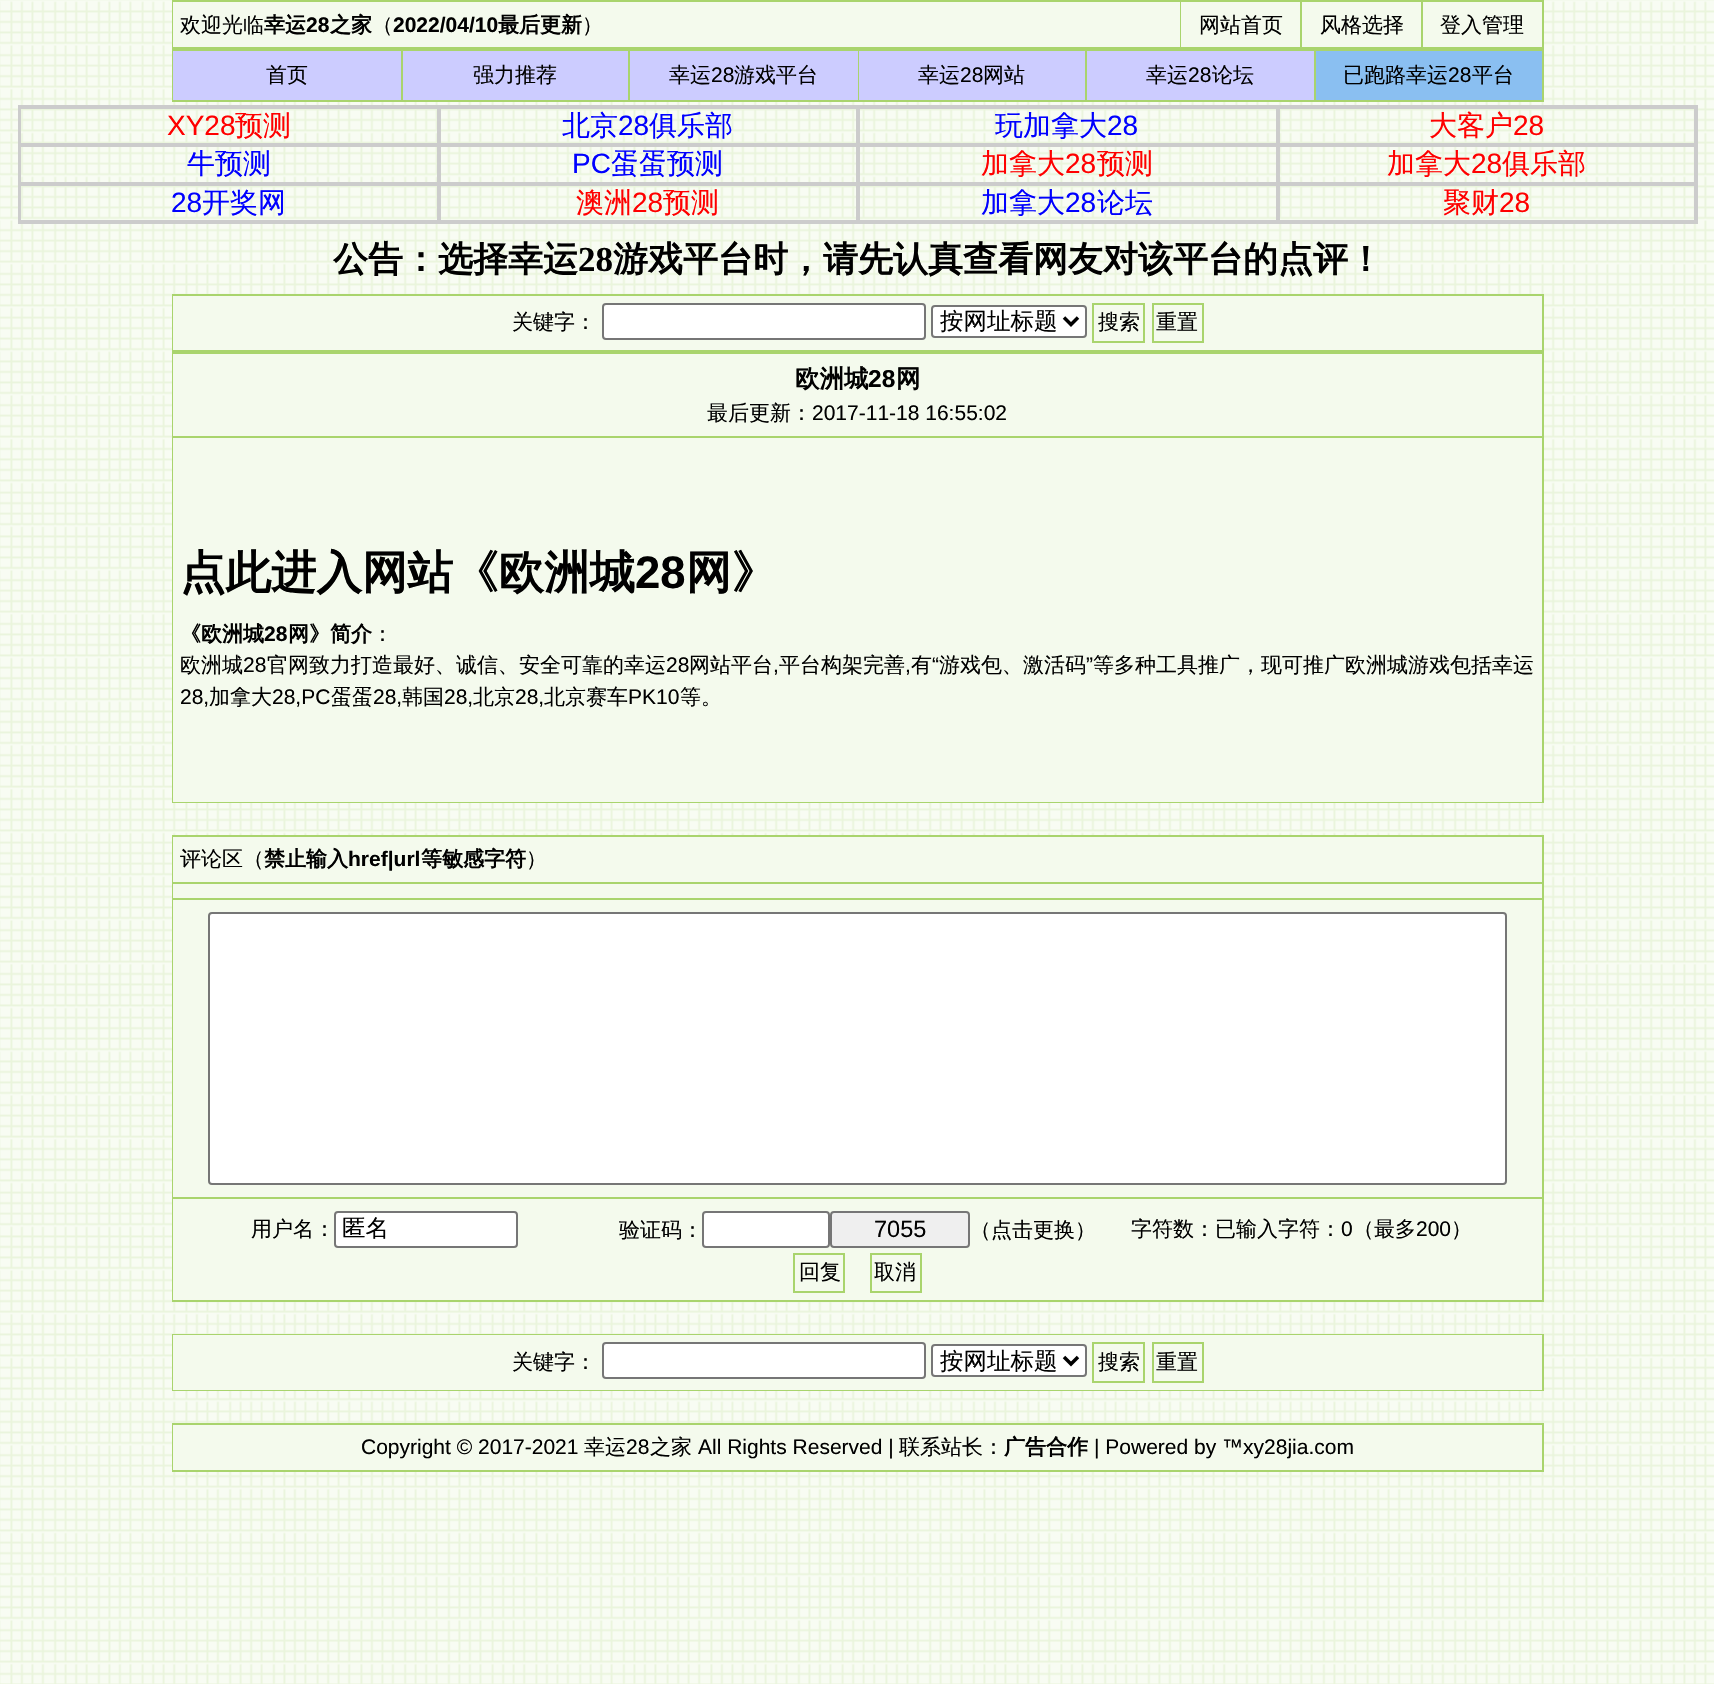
static SkFont makeFont(const char* family, int weight, float size, bool italic = false) {
  SkFontStyle style(weight, SkFontStyle::kNormal_Width,
    italic ? SkFontStyle::kItalic_Slant : SkFontStyle::kUpright_Slant);
  SkFont result(fontMgr->matchFamilyStyle(family, style), size);
  result.setSubpixel(true);
  return result;
}

static void text(SkCanvas* c, const char* s, float x, float y, const SkFont& font, SkColor color) {
  SkPaint ink(SkColor4f::FromColor(color));
  ink.setAntiAlias(true);
  c->drawString(s, x, y, font, ink);
}

static void box(SkCanvas* c, float l, float t, float r, float b, SkColor color) {
  SkPaint ink(SkColor4f::FromColor(color));
  ink.setAntiAlias(true);
  c->drawRect(SkRect::MakeLTRB(l, t, r, b), ink);
}

static void picture(SkCanvas* c, const char* path, float l, float t, float r, float b) {
  auto image = SkImages::DeferredFromEncodedData(SkData::MakeFromFileName(path));
  c->drawImageRect(image, SkRect::MakeLTRB(l, t, r, b), SkSamplingOptions());
}

void draw(SkCanvas* c) {
  SkPaint paint;
  paint.setAntiAlias(true);
  c->clear(0xffffffff);
  picture(c, "img_01.png", 0, 0, 1714, 1684);
  box(c, 172, 0, 1544, 102, 0xffa9d46d);
  box(c, 173, 2, 1180, 47, 0xfff4faed);
  SkFont face1 = makeFont("WenQuanYi Zen Hei", 500, 21);
  text(c, "欢迎光临", 180, 32, face1, 0xff000000);
  SkFont face2 = makeFont("WenQuanYi Zen Hei", 700, 21);
  text(c, "幸运", 264, 32, face2, 0xff000000);
  SkFont face3 = makeFont("Liberation Sans", 700, 21);
  text(c, "28", 306, 32, face3, 0xff000000);
  text(c, "之家", 330, 32, face2, 0xff000000);
  text(c, "（", 372, 32, face1, 0xff000000);
  text(c, "2022/04/10", 393, 32, face3, 0xff000000);
  text(c, "最后更新", 498, 32, face2, 0xff000000);
  text(c, "）", 582, 32, face1, 0xff000000);
  box(c, 1181, 2, 1300, 47, 0xfff4faed);
  text(c, "网站首页", 1199, 32, face1, 0xff000000);
  box(c, 1302, 2, 1421, 47, 0xfff4faed);
  text(c, "风格选择", 1320, 32, face1, 0xff000000);
  box(c, 1423, 2, 1542, 47, 0xfff4faed);
  text(c, "登入管理", 1440, 32, face1, 0xff000000);
  box(c, 173, 51, 401, 100, 0xffccccff);
  text(c, "首页", 266, 82, face1, 0xff000000);
  box(c, 403, 51, 628, 100, 0xffccccff);
  text(c, "强力推荐", 473, 82, face1, 0xff000000);
  box(c, 630, 51, 858, 100, 0xffccccff);
  text(c, "幸运", 669, 82, face1, 0xff000000);
  SkFont face4 = makeFont("Liberation Sans", 400, 21);
  text(c, "28", 711, 82, face4, 0xff000000);
  text(c, "游戏平台", 734, 82, face1, 0xff000000);
  box(c, 859, 51, 1085, 100, 0xffccccff);
  text(c, "幸运", 918, 82, face1, 0xff000000);
  text(c, "28", 960, 82, face4, 0xff000000);
  text(c, "网站", 983, 82, face1, 0xff000000);
  box(c, 1087, 51, 1314, 100, 0xffccccff);
  text(c, "幸运", 1146, 82, face1, 0xff000000);
  text(c, "28", 1188, 82, face4, 0xff000000);
  text(c, "论坛", 1212, 82, face1, 0xff000000);
  box(c, 1316, 51, 1542, 100, 0xff8abff1);
  text(c, "已跑路幸运", 1343, 82, face1, 0xff000000);
  text(c, "28", 1448, 82, face4, 0xff000000);
  text(c, "平台", 1472, 82, face1, 0xff000000);
  paint.setStyle(SkPaint::kStroke_Style);
  paint.setStrokeWidth(2);
  paint.setColor(0xffcccccc);
  c->drawRect(SkRect::MakeLTRB(19, 106, 1697, 223), paint);
  c->drawRect(SkRect::MakeLTRB(20, 108, 438, 144), paint);
  SkFont face5 = makeFont("Liberation Sans", 400, 28);
  text(c, "XY28", 167, 135, face5, 0xffff0000);
  SkFont face6 = makeFont("WenQuanYi Zen Hei", 500, 28);
  text(c, "预测", 235, 135, face6, 0xffff0000);
  c->drawRect(SkRect::MakeLTRB(440, 108, 857, 144), paint);
  text(c, "北京", 562, 135, face6, 0xff0000ff);
  text(c, "28", 618, 135, face5, 0xff0000ff);
  text(c, "俱乐部", 649, 135, face6, 0xff0000ff);
  c->drawRect(SkRect::MakeLTRB(859, 108, 1277, 144), paint);
  text(c, "玩加拿大", 995, 135, face6, 0xff0000ff);
  text(c, "28", 1107, 135, face5, 0xff0000ff);
  c->drawRect(SkRect::MakeLTRB(1279, 108, 1695, 144), paint);
  text(c, "大客户", 1429, 135, face6, 0xffff0000);
  text(c, "28", 1513, 135, face5, 0xffff0000);
  c->drawRect(SkRect::MakeLTRB(20, 146, 438, 183), paint);
  text(c, "牛预测", 187, 173, face6, 0xff0000ff);
  c->drawRect(SkRect::MakeLTRB(440, 146, 857, 183), paint);
  text(c, "PC", 572, 173, face5, 0xff0000ff);
  text(c, "蛋蛋预测", 611, 173, face6, 0xff0000ff);
  c->drawRect(SkRect::MakeLTRB(859, 146, 1277, 183), paint);
  text(c, "加拿大", 981, 173, face6, 0xffff0000);
  text(c, "28", 1065, 173, face5, 0xffff0000);
  text(c, "预测", 1097, 173, face6, 0xffff0000);
  c->drawRect(SkRect::MakeLTRB(1279, 146, 1695, 183), paint);
  text(c, "加拿大", 1387, 173, face6, 0xffff0000);
  text(c, "28", 1471, 173, face5, 0xffff0000);
  text(c, "俱乐部", 1502, 173, face6, 0xffff0000);
  c->drawRect(SkRect::MakeLTRB(20, 185, 438, 221), paint);
  text(c, "28", 171, 212, face5, 0xff0000ff);
  text(c, "开奖网", 202, 212, face6, 0xff0000ff);
  c->drawRect(SkRect::MakeLTRB(440, 185, 857, 221), paint);
  text(c, "澳洲", 576, 212, face6, 0xffff0000);
  text(c, "28", 632, 212, face5, 0xffff0000);
  text(c, "预测", 663, 212, face6, 0xffff0000);
  c->drawRect(SkRect::MakeLTRB(859, 185, 1277, 221), paint);
  text(c, "加拿大", 981, 212, face6, 0xff0000ff);
  text(c, "28", 1065, 212, face5, 0xff0000ff);
  text(c, "论坛", 1097, 212, face6, 0xff0000ff);
  c->drawRect(SkRect::MakeLTRB(1279, 185, 1695, 221), paint);
  text(c, "聚财", 1443, 212, face6, 0xffff0000);
  text(c, "28", 1499, 212, face5, 0xffff0000);
  SkFont face7 = makeFont("WenQuanYi Zen Hei", 700, 35);
  text(c, "公告：选择幸运", 333, 271, face7, 0xff000000);
  SkFont face8 = makeFont("Liberation Serif", 700, 35);
  text(c, "28", 578, 271, face8, 0xff000000);
  text(c, "游戏平台时，请先认真查看网友对该平台的点评！", 613, 271, face7, 0xff000000);
  box(c, 172, 294, 1544, 803, 0xffa9d46d);
  box(c, 173, 296, 1542, 350, 0xfff4faed);
  text(c, "关键字：", 512, 329, face1, 0xff000000);
  paint.setStyle(SkPaint::kFill_Style);
  paint.setColor(0xffffffff);
  c->drawRoundRect(SkRect::MakeLTRB(603, 304, 925, 339), 3, 3, paint);
  paint.setStyle(SkPaint::kStroke_Style);
  paint.setColor(0xff767676);
  c->drawRoundRect(SkRect::MakeLTRB(603, 304, 925, 339), 3, 3, paint);
  paint.setStyle(SkPaint::kFill_Style);
  paint.setColor(0xffffffff);
  c->drawRoundRect(SkRect::MakeLTRB(932, 306, 1086, 337), 3, 3, paint);
  paint.setStyle(SkPaint::kStroke_Style);
  paint.setColor(0xff767676);
  c->drawRoundRect(SkRect::MakeLTRB(932, 306, 1086, 337), 3, 3, paint);
  paint.setStrokeWidth(3.5f);
  paint.setColor(0xff000000);
  c->drawPath(SkPathBuilder().moveTo(1064, 317.5f).lineTo(1071, 324.5f).lineTo(1078, 317.5f).detach(), paint);
  SkFont face9 = makeFont("WenQuanYi Zen Hei", 500, 23.5f);
  text(c, "按网址标题", 940, 329, face9, 0xff000000);
  paint.setStrokeWidth(2);
  paint.setColor(0xffa9d46d);
  c->drawRect(SkRect::MakeLTRB(1093, 304, 1144, 342), paint);
  text(c, "搜索", 1098, 329, face1, 0xff000000);
  c->drawRect(SkRect::MakeLTRB(1153, 304, 1203, 342), paint);
  text(c, "重置", 1156, 329, face1, 0xff000000);
  box(c, 173, 354, 1542, 436, 0xfff4faed);
  SkFont face10 = makeFont("WenQuanYi Zen Hei", 700, 24.5f);
  text(c, "欧洲城", 795, 387, face10, 0xff000000);
  SkFont face11 = makeFont("Liberation Sans", 700, 24.5f);
  text(c, "28", 868, 387, face11, 0xff000000);
  text(c, "网", 896, 387, face10, 0xff000000);
  text(c, "最后更新：", 707, 420, face1, 0xff000000);
  text(c, "2017-11-18 16:55:02", 812, 420, face4, 0xff000000);
  box(c, 173, 438, 1542, 802, 0xfff4faed);
  SkFont face12 = makeFont("WenQuanYi Zen Hei", 700, 45.5f);
  text(c, "点此进入网站《欧洲城", 180, 588, face12, 0xff000000);
  SkFont face13 = makeFont("Liberation Sans", 700, 45.5f);
  text(c, "28", 635, 588, face13, 0xff000000);
  text(c, "网》", 686, 588, face12, 0xff000000);
  text(c, "《欧洲城", 180, 641, face2, 0xff000000);
  text(c, "28", 264, 641, face3, 0xff000000);
  text(c, "网》简介", 288, 641, face2, 0xff000000);
  text(c, "：", 372, 641, face1, 0xff000000);
  text(c, "欧洲城", 180, 672, face1, 0xff000000);
  text(c, "28", 243, 672, face4, 0xff000000);
  text(c, "官网致力打造最好、诚信、安全可靠的幸运", 267, 672, face1, 0xff000000);
  text(c, "28", 666, 672, face4, 0xff000000);
  text(c, "网站平台", 689, 672, face1, 0xff000000);
  text(c, "平台构架完善", 779, 672, face1, 0xff000000);
  text(c, "有", 911, 672, face1, 0xff000000);
  text(c, "“", 932, 672, face4, 0xff000000);
  text(c, "游戏包、激活码", 939, 672, face1, 0xff000000);
  text(c, "”", 1086, 672, face4, 0xff000000);
  text(c, "等多种工具推广，现可推广欧洲城游戏包括幸运", 1093, 672, face1, 0xff000000);
  text(c, ",", 773, 672, face4, 0xff000000);
  text(c, ",", 905, 672, face4, 0xff000000);
  text(c, "28,", 180, 704, face4, 0xff000000);
  text(c, "加拿大", 209, 704, face1, 0xff000000);
  text(c, "28,PC", 272, 704, face4, 0xff000000);
  text(c, "蛋蛋", 331, 704, face1, 0xff000000);
  text(c, "28,", 373, 704, face4, 0xff000000);
  text(c, "韩国", 402, 704, face1, 0xff000000);
  text(c, "28,", 444, 704, face4, 0xff000000);
  text(c, "北京", 473, 704, face1, 0xff000000);
  text(c, "28,", 515, 704, face4, 0xff000000);
  text(c, "北京赛车", 544, 704, face1, 0xff000000);
  text(c, "PK10", 628, 704, face4, 0xff000000);
  text(c, "等。", 680, 704, face1, 0xff000000);
  box(c, 172, 835, 1544, 1302, 0xffa9d46d);
  box(c, 173, 837, 1542, 882, 0xfff4faed);
  text(c, "评论区（", 180, 866, face1, 0xff000000);
  text(c, "禁止输入", 264, 866, face2, 0xff000000);
  text(c, "href|url", 348, 866, face3, 0xff000000);
  text(c, "等敏感字符", 421, 866, face2, 0xff000000);
  text(c, "）", 526, 866, face1, 0xff000000);
  box(c, 173, 884, 1542, 898, 0xfff4faed);
  box(c, 173, 900, 1542, 1197, 0xfff4faed);
  paint.setStyle(SkPaint::kFill_Style);
  paint.setColor(0xffffffff);
  c->drawRoundRect(SkRect::MakeLTRB(209, 913, 1506, 1184), 3, 3, paint);
  paint.setStyle(SkPaint::kStroke_Style);
  paint.setColor(0xff767676);
  c->drawRoundRect(SkRect::MakeLTRB(209, 913, 1506, 1184), 3, 3, paint);
  box(c, 173, 1199, 1542, 1300, 0xfff4faed);
  text(c, "用户名：", 251, 1236, face1, 0xff000000);
  paint.setStyle(SkPaint::kFill_Style);
  paint.setColor(0xffffffff);
  c->drawRoundRect(SkRect::MakeLTRB(335, 1212, 517, 1247), 3, 3, paint);
  paint.setStyle(SkPaint::kStroke_Style);
  paint.setColor(0xff767676);
  c->drawRoundRect(SkRect::MakeLTRB(335, 1212, 517, 1247), 3, 3, paint);
  text(c, "匿名", 342, 1236, face9, 0xff000000);
  text(c, "验证码：", 619, 1237, face1, 0xff000000);
  paint.setStyle(SkPaint::kFill_Style);
  paint.setColor(0xffffffff);
  c->drawRoundRect(SkRect::MakeLTRB(703, 1212, 829, 1247), 3, 3, paint);
  paint.setStyle(SkPaint::kStroke_Style);
  paint.setColor(0xff767676);
  c->drawRoundRect(SkRect::MakeLTRB(703, 1212, 829, 1247), 3, 3, paint);
  paint.setStyle(SkPaint::kFill_Style);
  paint.setColor(0xffefefef);
  c->drawRoundRect(SkRect::MakeLTRB(831, 1212, 969, 1247), 3, 3, paint);
  paint.setStyle(SkPaint::kStroke_Style);
  paint.setColor(0xff767676);
  c->drawRoundRect(SkRect::MakeLTRB(831, 1212, 969, 1247), 3, 3, paint);
  SkFont face14 = makeFont("Liberation Sans", 400, 23.5f);
  text(c, "7055", 874, 1237, face14, 0xff000000);
  text(c, "（点击更换）", 970, 1237, face1, 0xff000000);
  text(c, "字符数：已输入字符：", 1131, 1236, face1, 0xff000000);
  text(c, "0", 1341, 1236, face4, 0xff000000);
  text(c, "（最多", 1353, 1236, face1, 0xff000000);
  text(c, "200", 1416, 1236, face4, 0xff000000);
  text(c, "）", 1451, 1236, face1, 0xff000000);
  paint.setColor(0xffa9d46d);
  c->drawRect(SkRect::MakeLTRB(794, 1254, 844, 1292), paint);
  text(c, "回复", 799, 1279, face1, 0xff000000);
  c->drawRect(SkRect::MakeLTRB(871, 1254, 921, 1292), paint);
  text(c, "取消", 874, 1279, face1, 0xff000000);
  box(c, 172, 1334, 1544, 1391, 0xffa9d46d);
  box(c, 173, 1335, 1542, 1390, 0xfff4faed);
  text(c, "关键字：", 512, 1369, face1, 0xff000000);
  paint.setStyle(SkPaint::kFill_Style);
  paint.setColor(0xffffffff);
  c->drawRoundRect(SkRect::MakeLTRB(603, 1343, 925, 1378), 3, 3, paint);
  paint.setStyle(SkPaint::kStroke_Style);
  paint.setColor(0xff767676);
  c->drawRoundRect(SkRect::MakeLTRB(603, 1343, 925, 1378), 3, 3, paint);
  paint.setStyle(SkPaint::kFill_Style);
  paint.setColor(0xffffffff);
  c->drawRoundRect(SkRect::MakeLTRB(932, 1345, 1086, 1376), 3, 3, paint);
  paint.setStyle(SkPaint::kStroke_Style);
  paint.setColor(0xff767676);
  c->drawRoundRect(SkRect::MakeLTRB(932, 1345, 1086, 1376), 3, 3, paint);
  paint.setStrokeWidth(3.5f);
  paint.setColor(0xff000000);
  c->drawPath(SkPathBuilder().moveTo(1064, 1357).lineTo(1071, 1364).lineTo(1078, 1357).detach(), paint);
  text(c, "按网址标题", 940, 1369, face9, 0xff000000);
  paint.setStrokeWidth(2);
  paint.setColor(0xffa9d46d);
  c->drawRect(SkRect::MakeLTRB(1093, 1343, 1144, 1382), paint);
  text(c, "搜索", 1098, 1369, face1, 0xff000000);
  c->drawRect(SkRect::MakeLTRB(1153, 1343, 1203, 1382), paint);
  text(c, "重置", 1156, 1369, face1, 0xff000000);
  box(c, 172, 1423, 1544, 1472, 0xffa9d46d);
  box(c, 173, 1425, 1542, 1470, 0xfff4faed);
  text(c, "Copyright © 2017-2021", 361, 1454, face4, 0xff000000);
  text(c, "幸运", 584, 1454, face1, 0xff000000);
  text(c, "28", 626, 1454, face4, 0xff000000);
  text(c, "之家", 650, 1454, face1, 0xff000000);
  text(c, "All Rights Reserved |", 698, 1454, face4, 0xff000000);
  text(c, "联系站长：", 899, 1454, face1, 0xff000000);
  text(c, "广告合作", 1004, 1454, face2, 0xff000000);
  text(c, "| Powered by ™xy28jia.com", 1094, 1454, face4, 0xff000000);
}
